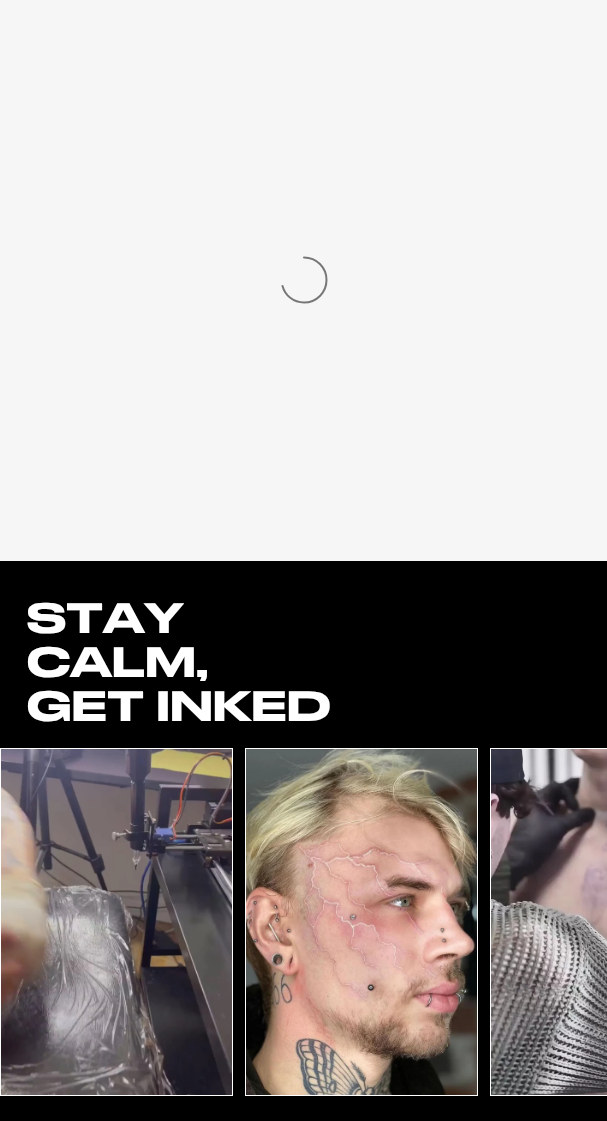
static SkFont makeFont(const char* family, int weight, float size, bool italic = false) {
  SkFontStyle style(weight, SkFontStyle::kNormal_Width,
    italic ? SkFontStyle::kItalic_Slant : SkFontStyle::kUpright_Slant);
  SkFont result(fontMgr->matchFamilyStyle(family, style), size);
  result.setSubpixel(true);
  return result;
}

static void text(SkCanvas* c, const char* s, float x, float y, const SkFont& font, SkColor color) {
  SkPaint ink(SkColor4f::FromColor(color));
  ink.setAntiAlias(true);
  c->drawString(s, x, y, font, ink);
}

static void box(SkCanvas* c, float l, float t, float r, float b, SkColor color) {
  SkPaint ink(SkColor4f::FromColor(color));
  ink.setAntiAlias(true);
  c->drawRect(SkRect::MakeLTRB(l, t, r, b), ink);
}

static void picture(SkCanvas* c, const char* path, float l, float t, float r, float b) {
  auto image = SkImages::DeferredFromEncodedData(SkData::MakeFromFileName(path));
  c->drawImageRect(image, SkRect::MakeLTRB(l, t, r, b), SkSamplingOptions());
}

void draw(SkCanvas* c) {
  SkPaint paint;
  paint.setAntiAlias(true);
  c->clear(0xfff6f6f6);
  paint.setStyle(SkPaint::kStroke_Style);
  paint.setStrokeWidth(2);
  paint.setStrokeCap(SkPaint::kRound_Cap);
  paint.setColor(0xff777777);
  c->drawPath(SkPathBuilder().moveTo(304, 257.5f).cubicTo(316.5f, 257.5f, 326.5f, 267.5f, 326.5f, 280).cubicTo(326.5f, 292.5f, 316.5f, 302.5f, 304, 302.5f).cubicTo(293.5f, 302.5f, 285, 295.5f, 282.5f, 286).detach(), paint);
  box(c, 0, 561, 607, 1121, 0xff000000);
  SkFont face1 = makeFont("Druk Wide", 500, 40);
  text(c, "STAY", 27, 633, face1, 0xffffffff);
  text(c, "CALM,", 27, 677, face1, 0xffffffff);
  text(c, "GET INKED", 27, 721, face1, 0xffffffff);
  paint.setStrokeWidth(1);
  paint.setStrokeCap(SkPaint::kButt_Cap);
  paint.setColor(0xffffffff);
  c->drawRect(SkRect::MakeLTRB(0.5f, 748.5f, 232.5f, 1095.5f), paint);
  picture(c, "img_01.png", 1, 749, 232, 1095);
  c->drawRect(SkRect::MakeLTRB(245.5f, 748.5f, 477.5f, 1095.5f), paint);
  picture(c, "img_02.png", 246, 749, 477, 1095);
  c->drawRect(SkRect::MakeLTRB(490.5f, 748.5f, 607.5f, 1095.5f), paint);
  picture(c, "img_03.png", 491, 749, 607, 1095);
}
